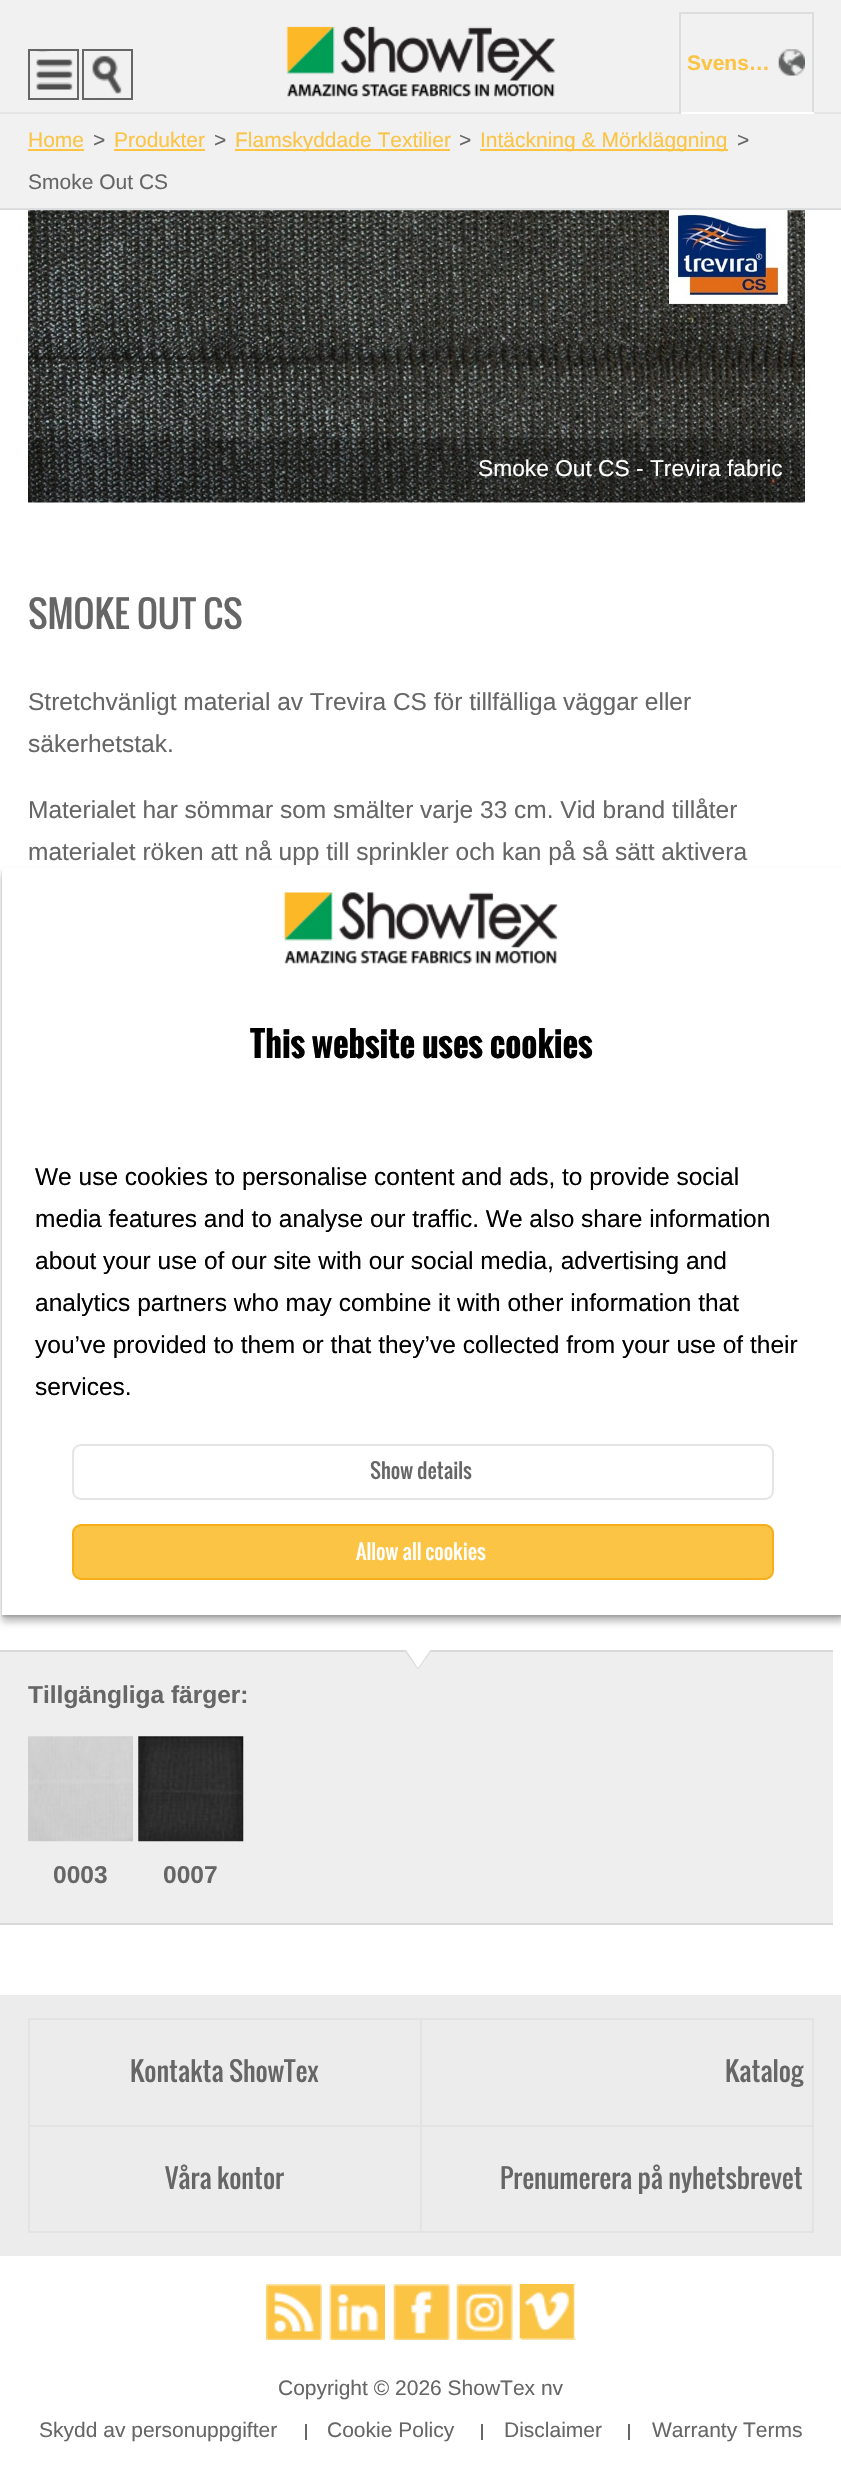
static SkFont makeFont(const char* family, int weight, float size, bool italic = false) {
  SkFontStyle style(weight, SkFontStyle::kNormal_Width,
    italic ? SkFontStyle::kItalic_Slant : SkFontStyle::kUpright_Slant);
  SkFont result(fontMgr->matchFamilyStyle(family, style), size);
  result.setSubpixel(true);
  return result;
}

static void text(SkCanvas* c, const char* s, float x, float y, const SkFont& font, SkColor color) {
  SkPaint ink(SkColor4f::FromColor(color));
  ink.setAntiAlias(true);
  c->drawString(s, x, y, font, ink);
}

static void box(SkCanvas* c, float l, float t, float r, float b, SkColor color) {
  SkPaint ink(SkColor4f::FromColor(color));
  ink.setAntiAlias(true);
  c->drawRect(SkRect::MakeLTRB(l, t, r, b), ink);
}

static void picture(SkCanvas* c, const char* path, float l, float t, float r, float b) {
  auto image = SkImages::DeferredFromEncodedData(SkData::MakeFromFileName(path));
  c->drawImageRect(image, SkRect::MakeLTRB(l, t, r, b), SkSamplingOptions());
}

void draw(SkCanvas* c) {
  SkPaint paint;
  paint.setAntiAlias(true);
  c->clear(0xffffffff);
  box(c, 0, 0, 841, 112, 0xfff1f1f2);
  picture(c, "img_01.png", 36, 51, 73, 90);
  paint.setStyle(SkPaint::kStroke_Style);
  paint.setStrokeWidth(2);
  paint.setColor(0xff666666);
  c->drawRect(SkRect::MakeLTRB(29, 50, 78, 99), paint);
  picture(c, "img_02.png", 92, 55, 122, 98);
  c->drawRect(SkRect::MakeLTRB(83, 50, 132, 99), paint);
  box(c, 0, 112, 841, 114, 0xffe5e5e5);
  picture(c, "img_03.png", 286, 26, 556, 97);
  box(c, 679, 12, 814, 14, 0xffdcddde);
  box(c, 812, 12, 814, 114, 0xffdcddde);
  box(c, 679, 112, 814, 114, 0xffffffff);
  box(c, 679, 12, 681, 114, 0xffdcddde);
  SkFont face1 = makeFont("Liberation Sans", 700, 21);
  text(c, "Svens…", 687, 70, face1, 0xfffbc445);
  picture(c, "img_04.png", 778, 49, 805, 76);
  box(c, 0, 114, 841, 208, 0xfff1f1f2);
  box(c, 0, 208, 841, 210, 0xffdcddde);
  SkFont face2 = makeFont("Liberation Sans", 400, 21);
  text(c, "Home", 28, 147, face2, 0xfffbc445);
  box(c, 28, 149, 84, 151, 0xfffbc445);
  text(c, ">", 93, 147, face2, 0xff666666);
  text(c, "Produkter", 114, 147, face2, 0xfffbc445);
  box(c, 114, 149, 205, 151, 0xfffbc445);
  text(c, ">", 214, 147, face2, 0xff666666);
  box(c, 235, 149, 450, 151, 0xfffbc445);
  text(c, "Flamskyddade Textilier", 235, 147, face2, 0xfffbc445);
  text(c, ">", 459, 147, face2, 0xff666666);
  box(c, 480, 149, 728, 151, 0xfffbc445);
  text(c, "Intäckning & Mörkläggning", 480, 147, face2, 0xfffbc445);
  text(c, ">", 737, 147, face2, 0xff666666);
  text(c, "Smoke Out CS", 28, 189, face2, 0xff666666);
  picture(c, "img_05.png", 28, 210, 805, 503);
  box(c, 28, 438, 805, 502, 0x40000000);
  SkFont face3 = makeFont("Liberation Sans", 400, 22.75f);
  text(c, "Smoke Out CS - Trevira fabric", 478, 476, face3, 0xffffffff);
  SkFont face4 = makeFont("Oswald", 400, 43.75f);
  text(c, "SMOKE OUT CS", 28, 629, face4, 0xff666666);
  SkFont face5 = makeFont("Liberation Sans", 400, 24.5f);
  text(c, "Stretchvänligt material av Trevira CS för tillfälliga väggar eller", 28, 710, face5, 0xff666666);
  text(c, "säkerhetstak.", 28, 752, face5, 0xff666666);
  text(c, "Materialet har sömmar som smälter varje 33 cm. Vid brand tillåter", 28, 818, face5, 0xff666666);
  text(c, "materialet röken att nå upp till sprinkler och kan på så sätt aktivera", 28, 860, face5, 0xff666666);
  box(c, 0, 1652, 833, 1923, 0xffeeeeee);
  box(c, 0, 1650, 833, 1652, 0xffd8dada);
  box(c, 0, 1923, 833, 1925, 0xffd8dada);
  paint.setStyle(SkPaint::kFill_Style);
  paint.setColor(0xffd8dada);
  c->drawPath(SkPathBuilder().moveTo(404, 1650).lineTo(432, 1650).lineTo(418, 1669.5f).close().detach(), paint);
  paint.setColor(0xffffffff);
  c->drawPath(SkPathBuilder().moveTo(406, 1650).lineTo(430.5f, 1650).lineTo(418, 1668).close().detach(), paint);
  SkFont face6 = makeFont("Liberation Sans", 700, 24.5f);
  text(c, "Tillgängliga färger:", 28, 1703, face6, 0xff666666);
  picture(c, "img_06.png", 28, 1736, 133, 1842);
  text(c, "0003", 53, 1883, face6, 0xff666666);
  box(c, 138, 1736, 243, 1841, 0xffffffff);
  picture(c, "img_07.png", 138, 1736, 244, 1842);
  text(c, "0007", 163, 1883, face6, 0xff666666);
  box(c, 0, 1995, 841, 2256, 0xffececec);
  box(c, 28, 2018, 814, 2020, 0xffe3e3e3);
  box(c, 420, 2018, 422, 2125, 0xffe3e3e3);
  box(c, 28, 2018, 30, 2125, 0xffe3e3e3);
  SkFont face7 = makeFont("Oswald", 400, 31.5f);
  text(c, "Kontakta ShowTex", 130, 2082, face7, 0xff666666);
  paint.setStyle(SkPaint::kStroke_Style);
  paint.setColor(0xffe3e3e3);
  c->drawRect(SkRect::MakeLTRB(29, 2126, 421, 2232), paint);
  text(c, "Våra kontor", 165, 2189, face7, 0xff666666);
  box(c, 812, 2018, 814, 2125, 0xffe3e3e3);
  text(c, "Katalog", 725, 2082, face7, 0xff666666);
  box(c, 422, 2125, 814, 2127, 0xffe3e3e3);
  box(c, 812, 2125, 814, 2233, 0xffe3e3e3);
  box(c, 422, 2231, 814, 2233, 0xffe3e3e3);
  text(c, "Prenumerera på nyhetsbrevet", 500, 2189, face7, 0xff666666);
  picture(c, "img_08.png", 266, 2284, 322, 2340);
  picture(c, "img_09.png", 329, 2284, 385, 2340);
  picture(c, "img_10.png", 393, 2284, 450, 2340);
  picture(c, "img_11.png", 456, 2284, 513, 2340);
  picture(c, "img_12.png", 519, 2284, 576, 2340);
  text(c, "Copyright © 2026 ShowTex nv", 278, 2395, face2, 0xff666666);
  text(c, "Skydd av personuppgifter", 39, 2437, face2, 0xff666666);
  box(c, 305, 2424, 307, 2440, 0xff666666);
  text(c, "Cookie Policy", 327, 2437, face2, 0xff666666);
  box(c, 481, 2424, 483, 2440, 0xff666666);
  text(c, "Disclaimer", 504, 2437, face2, 0xff666666);
  box(c, 628, 2424, 630, 2440, 0xff666666);
  text(c, "Warranty Terms", 652, 2437, face2, 0xff666666);
  paint.setStyle(SkPaint::kFill_Style);
  paint.setColor(0x40000000);
  paint.setMaskFilter(SkMaskFilter::MakeBlur(kNormal_SkBlurStyle, 3.5f));
  c->drawRect(SkRect::MakeLTRB(2, 875, 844, 1622), paint);
  paint.setMaskFilter(nullptr);
  paint.setColor(0x2b000000);
  paint.setMaskFilter(SkMaskFilter::MakeBlur(kNormal_SkBlurStyle, 1));
  c->drawRect(SkRect::MakeLTRB(2, 870, 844, 1617), paint);
  paint.setMaskFilter(nullptr);
  box(c, 2, 868, 841, 1615, 0xffffffff);
  picture(c, "img_13.png", 283, 892, 558, 964);
  SkFont face8 = makeFont("Oswald", 700, 42);
  text(c, "This website uses cookies", 250, 1058, face8, 0xff000000);
  text(c, "We use cookies to personalise content and ads, to provide social", 35, 1185, face5, 0xff000000);
  text(c, "media features and to analyse our traffic. We also share information", 35, 1227, face5, 0xff000000);
  text(c, "about your use of our site with our social media, advertising and", 35, 1269, face5, 0xff000000);
  text(c, "analytics partners who may combine it with other information that", 35, 1311, face5, 0xff000000);
  text(c, "you’ve provided to them or that they’ve collected from your use of their", 35, 1353, face5, 0xff000000);
  text(c, "services.", 35, 1395, face5, 0xff000000);
  paint.setStyle(SkPaint::kStroke_Style);
  paint.setColor(0xffe5e5e5);
  c->drawRoundRect(SkRect::MakeLTRB(73, 1445, 773, 1499), 8, 8, paint);
  SkFont face9 = makeFont("Oswald", 400, 24.5f);
  text(c, "Show details", 370, 1479, face9, 0xff666666);
  paint.setStyle(SkPaint::kFill_Style);
  paint.setColor(0xfffbc445);
  c->drawRoundRect(SkRect::MakeLTRB(73, 1525, 773, 1579), 8, 8, paint);
  paint.setStyle(SkPaint::kStroke_Style);
  paint.setColor(0xfff9ad19);
  c->drawRoundRect(SkRect::MakeLTRB(73, 1525, 773, 1579), 8, 8, paint);
  text(c, "Allow all cookies", 356, 1560, face9, 0xffffffff);
}
